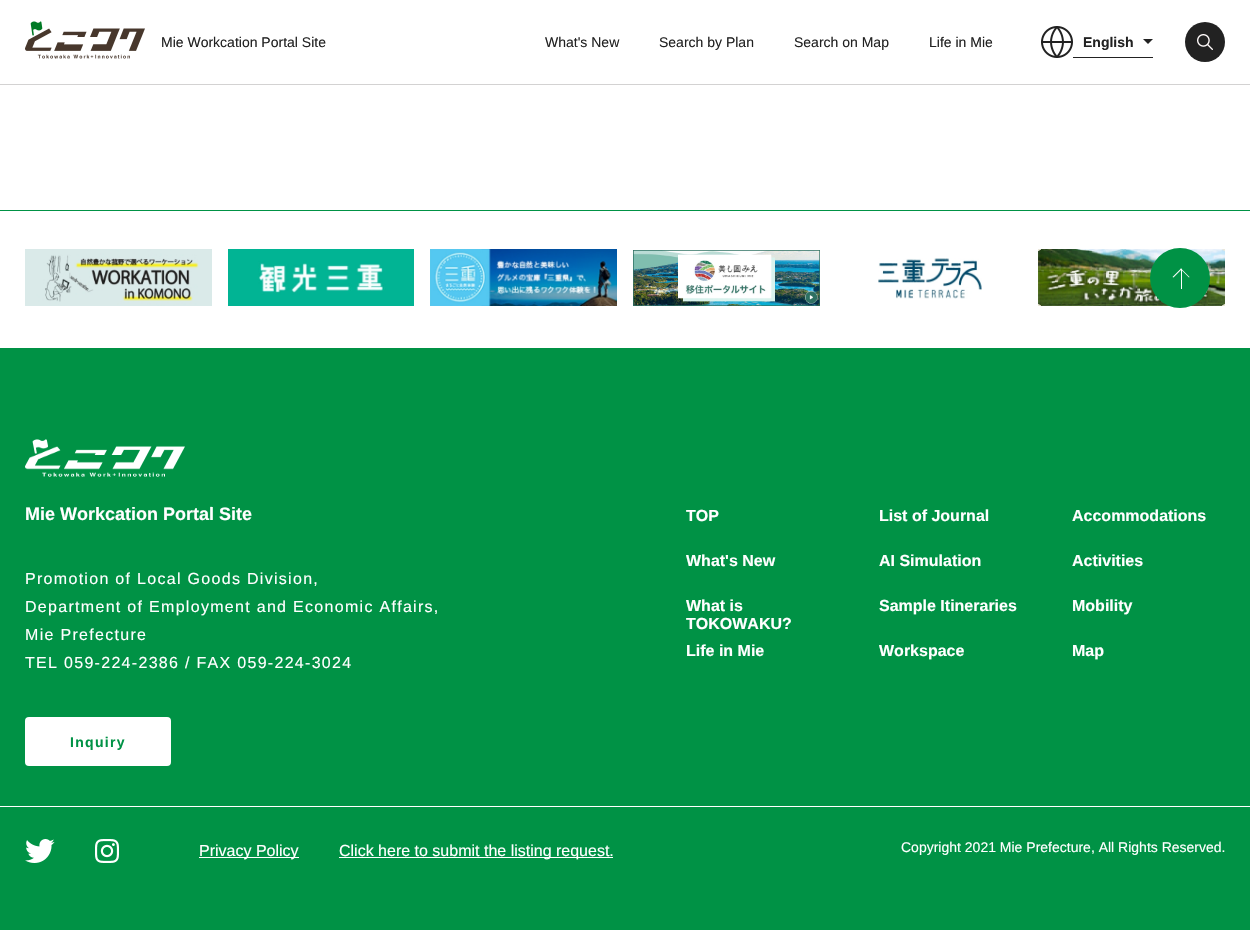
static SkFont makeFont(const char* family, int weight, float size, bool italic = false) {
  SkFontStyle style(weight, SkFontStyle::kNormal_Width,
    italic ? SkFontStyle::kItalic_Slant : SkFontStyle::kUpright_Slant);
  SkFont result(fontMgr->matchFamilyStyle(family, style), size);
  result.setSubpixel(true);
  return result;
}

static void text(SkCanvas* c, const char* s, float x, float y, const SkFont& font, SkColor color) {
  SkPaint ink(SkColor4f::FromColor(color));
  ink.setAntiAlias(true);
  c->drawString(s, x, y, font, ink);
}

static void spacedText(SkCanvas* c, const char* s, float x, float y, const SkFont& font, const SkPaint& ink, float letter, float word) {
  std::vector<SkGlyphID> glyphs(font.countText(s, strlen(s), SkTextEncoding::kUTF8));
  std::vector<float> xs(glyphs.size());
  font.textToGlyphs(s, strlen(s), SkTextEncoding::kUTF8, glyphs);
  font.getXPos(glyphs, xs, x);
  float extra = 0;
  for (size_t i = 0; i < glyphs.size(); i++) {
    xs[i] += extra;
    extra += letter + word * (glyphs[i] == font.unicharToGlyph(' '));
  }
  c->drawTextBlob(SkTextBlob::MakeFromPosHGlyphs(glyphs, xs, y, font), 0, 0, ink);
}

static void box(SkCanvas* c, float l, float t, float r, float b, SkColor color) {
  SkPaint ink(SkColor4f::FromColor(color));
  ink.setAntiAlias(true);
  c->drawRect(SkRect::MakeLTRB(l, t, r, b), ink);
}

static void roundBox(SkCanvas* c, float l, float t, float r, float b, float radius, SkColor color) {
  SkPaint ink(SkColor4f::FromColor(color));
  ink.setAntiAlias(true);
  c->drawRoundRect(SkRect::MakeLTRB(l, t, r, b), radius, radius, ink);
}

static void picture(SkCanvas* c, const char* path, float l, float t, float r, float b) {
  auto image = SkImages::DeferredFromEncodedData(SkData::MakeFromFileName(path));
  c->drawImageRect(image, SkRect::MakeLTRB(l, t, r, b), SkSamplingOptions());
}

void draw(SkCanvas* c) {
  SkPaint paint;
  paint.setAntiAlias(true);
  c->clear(0xffffffff);
  box(c, 0, 84, 1250, 85, 0xffd3d2d2);
  picture(c, "img_01.png", 25, 21, 145, 59);
  SkFont face1 = makeFont("Liberation Sans", 400, 14);
  text(c, "Mie Workcation Portal Site", 161, 47, face1, 0xff222222);
  text(c, "What's New", 545, 47, face1, 0xff222222);
  text(c, "Search by Plan", 659, 47, face1, 0xff222222);
  text(c, "Search on Map", 794, 47, face1, 0xff222222);
  text(c, "Life in Mie", 929, 47, face1, 0xff222222);
  picture(c, "img_02.png", 1041, 26, 1073, 58);
  box(c, 1073, 57, 1153, 58, 0xff222222);
  SkFont face2 = makeFont("Liberation Sans", 700, 14);
  text(c, "English", 1083, 47, face2, 0xff222222);
  paint.setColor(0xff222222);
  c->drawPath(SkPathBuilder().moveTo(1143, 39).lineTo(1153, 39).lineTo(1148, 44).close().detach(), paint);
  c->drawCircle(1205, 42, 20, paint);
  picture(c, "img_03.png", 1197, 34, 1213, 50);
  box(c, 0, 210, 1250, 211, 0xff009245);
  picture(c, "img_04.png", 25, 249, 212, 306);
  picture(c, "img_05.png", 228, 249, 414, 306);
  picture(c, "img_06.png", 430, 249, 617, 306);
  picture(c, "img_07.png", 633, 250, 820, 306);
  picture(c, "img_08.png", 878, 258, 982, 299);
  picture(c, "img_09.png", 1038, 249, 1225, 306);
  box(c, 0, 348, 1250, 930, 0xff009245);
  paint.setColor(0xff009245);
  c->drawCircle(1180, 278, 30, paint);
  paint.setColor(0xffffffff);
  c->drawPath(SkPathBuilder().moveTo(1182, 269).lineTo(1173.5f, 277.5f).lineTo(1172.5f, 277).lineTo(1181, 268.5f).close().detach(), paint);
  c->drawPath(SkPathBuilder().moveTo(1189.5f, 277).lineTo(1189, 277.5f).lineTo(1180.5f, 269).lineTo(1181, 268.5f).close().detach(), paint);
  box(c, 1181, 269, 1182, 289, 0xffffffff);
  picture(c, "img_10.png", 25, 439, 185, 477);
  SkFont face3 = makeFont("Liberation Sans", 700, 18);
  text(c, "Mie Workcation Portal Site", 25, 520, face3, 0xffffffff);
  SkFont face4 = makeFont("Liberation Sans", 400, 16);
  spacedText(c, "Promotion of Local Goods Division,", 25, 584, face4, paint, 1.3f, 0);
  spacedText(c, "Department of Employment and Economic Affairs,", 25, 612, face4, paint, 1.3f, 0);
  spacedText(c, "Mie Prefecture", 25, 640, face4, paint, 1.3f, 0);
  spacedText(c, "TEL 059-224-2386 / FAX 059-224-3024", 25, 668, face4, paint, 1.3f, 0);
  roundBox(c, 25, 717, 171, 766, 4, 0xffffffff);
  paint.setColor(0xff009245);
  spacedText(c, "Inquiry", 70, 747, face2, paint, 1.3f, 0);
  SkFont face5 = makeFont("Liberation Sans", 700, 16);
  text(c, "TOP", 686, 521, face5, 0xffffffff);
  text(c, "List of Journal", 879, 521, face5, 0xffffffff);
  text(c, "Accommodations", 1072, 521, face5, 0xffffffff);
  text(c, "What's New", 686, 566, face5, 0xffffffff);
  text(c, "AI Simulation", 879, 566, face5, 0xffffffff);
  text(c, "Activities", 1072, 566, face5, 0xffffffff);
  text(c, "What is", 686, 611, face5, 0xffffffff);
  text(c, "TOKOWAKU?", 686, 629, face5, 0xffffffff);
  text(c, "Sample Itineraries", 879, 611, face5, 0xffffffff);
  text(c, "Mobility", 1072, 611, face5, 0xffffffff);
  text(c, "Life in Mie", 686, 656, face5, 0xffffffff);
  text(c, "Workspace", 879, 656, face5, 0xffffffff);
  text(c, "Map", 1072, 656, face5, 0xffffffff);
  box(c, 0, 806, 1250, 807, 0xffffffff);
  picture(c, "img_11.png", 25, 839, 55, 863);
  picture(c, "img_12.png", 95, 839, 119, 863);
  box(c, 199, 857, 299, 858, 0xffffffff);
  text(c, "Privacy Policy", 199, 856, face4, 0xffffffff);
  box(c, 339, 857, 613, 858, 0xffffffff);
  text(c, "Click here to submit the listing request.", 339, 856, face4, 0xffffffff);
  text(c, "Copyright 2021 Mie Prefecture, All Rights Reserved.", 901, 852, face1, 0xffffffff);
}
